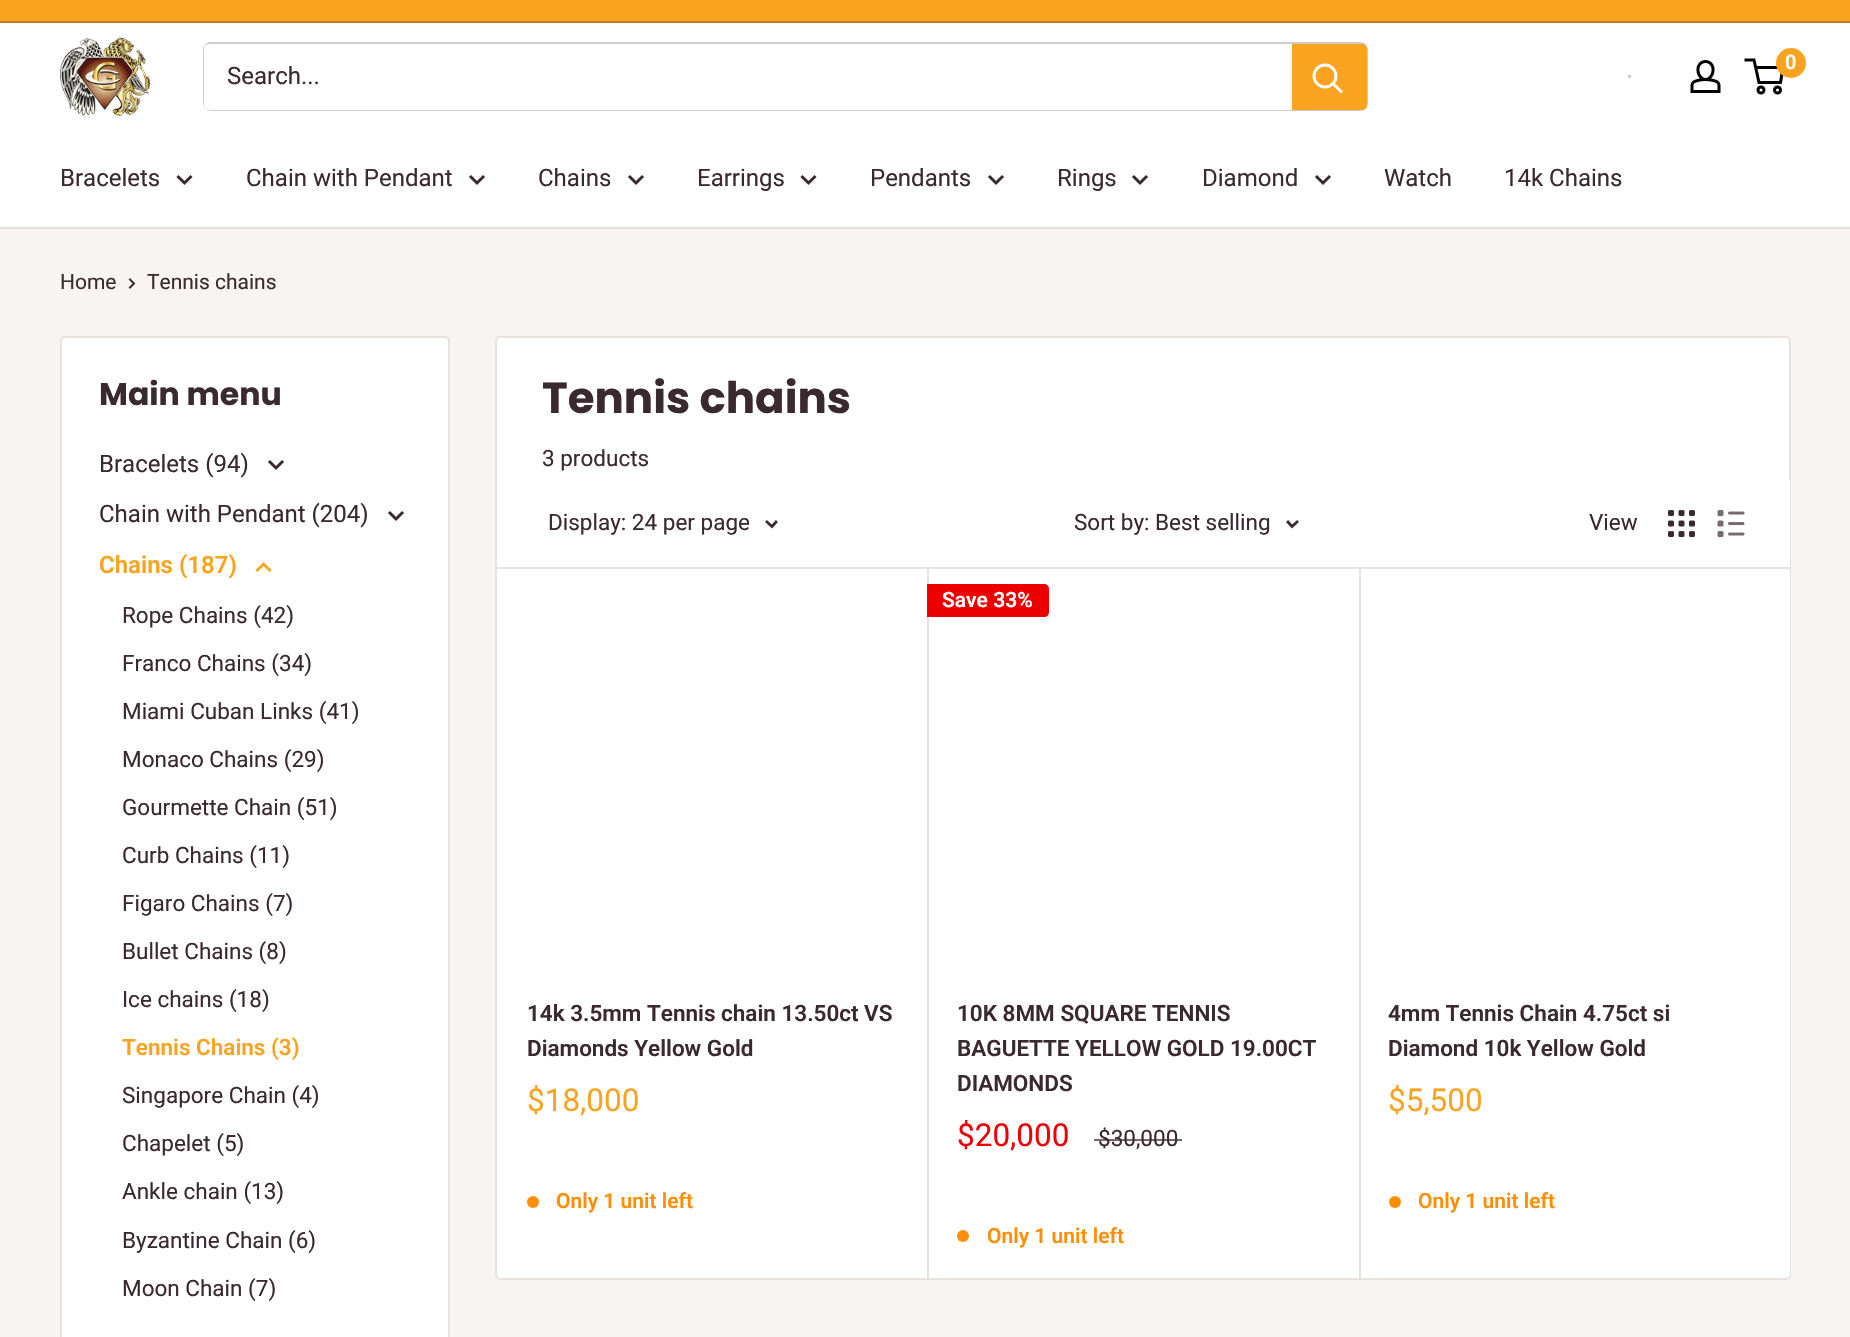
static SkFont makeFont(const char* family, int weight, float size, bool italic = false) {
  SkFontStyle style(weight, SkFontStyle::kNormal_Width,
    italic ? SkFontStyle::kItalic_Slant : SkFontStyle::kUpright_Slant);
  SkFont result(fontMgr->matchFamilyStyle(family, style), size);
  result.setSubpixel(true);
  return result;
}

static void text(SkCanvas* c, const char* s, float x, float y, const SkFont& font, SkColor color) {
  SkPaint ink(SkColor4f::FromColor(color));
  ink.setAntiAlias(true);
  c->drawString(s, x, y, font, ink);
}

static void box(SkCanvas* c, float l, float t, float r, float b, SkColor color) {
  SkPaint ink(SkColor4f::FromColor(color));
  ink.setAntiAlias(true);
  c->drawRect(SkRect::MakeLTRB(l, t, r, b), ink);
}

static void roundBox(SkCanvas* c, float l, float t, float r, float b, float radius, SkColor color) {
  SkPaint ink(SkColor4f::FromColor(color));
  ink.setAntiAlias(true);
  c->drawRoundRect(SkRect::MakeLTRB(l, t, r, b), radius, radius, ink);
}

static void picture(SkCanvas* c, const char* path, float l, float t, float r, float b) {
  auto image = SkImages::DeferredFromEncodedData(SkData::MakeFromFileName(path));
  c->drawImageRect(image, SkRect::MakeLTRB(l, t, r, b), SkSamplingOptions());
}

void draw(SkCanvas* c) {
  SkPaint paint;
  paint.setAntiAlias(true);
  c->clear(0xfff7f4f2);
  box(c, 0, 0, 1850, 21, 0xfffaa320);
  box(c, 0, 21, 1850, 23, 0xffc07f25);
  box(c, 0, 23, 1850, 227, 0xffffffff);
  picture(c, "img_01.png", 60, 37, 150, 116);
  picture(c, "img_02.png", 1690, 60, 1721, 93);
  paint.setStyle(SkPaint::kStroke_Style);
  paint.setStrokeWidth(3);
  paint.setColor(0xff000000);
  c->drawCircle(1761, 90, 3, paint);
  c->drawCircle(1777.5f, 90, 3, paint);
  c->drawPath(SkPathBuilder().moveTo(1755.5f, 67.5f).lineTo(1783, 67.5f).lineTo(1780.5f, 82.5f).lineTo(1759, 82.5f).lineTo(1754, 60).lineTo(1744.5f, 60).detach(), paint);
  paint.setStyle(SkPaint::kFill_Style);
  paint.setColor(0xfffaa320);
  c->drawCircle(1791, 63, 15, paint);
  SkFont face1 = makeFont("Roboto", 600, 20);
  text(c, "0", 1785, 69, face1, 0xffffffff);
  paint.setStyle(SkPaint::kStroke_Style);
  paint.setStrokeWidth(2);
  paint.setColor(0xffcccccc);
  c->drawRoundRect(SkRect::MakeLTRB(204, 43, 1367, 110), 7, 7, paint);
  roundBox(c, 204, 44, 1367, 110, 5, 0xffffffff);
  SkFont face2 = makeFont("Roboto", 400, 24);
  text(c, "Search...", 227, 84, face2, 0xff3a2a2f);
  paint.setStyle(SkPaint::kFill_Style);
  paint.setColor(0xfffaa320);
  c->drawPath(SkPathBuilder().moveTo(1292, 44).lineTo(1362, 44).cubicTo(1365, 44, 1367, 46, 1367, 49).lineTo(1367, 105).cubicTo(1367, 108, 1365, 110, 1362, 110).lineTo(1292, 110).close().detach(), paint);
  paint.setStyle(SkPaint::kStroke_Style);
  paint.setStrokeWidth(3);
  paint.setStrokeCap(SkPaint::kSquare_Cap);
  paint.setColor(0xffffffff);
  c->drawPath(SkPathBuilder().moveTo(1341, 91.5f).lineTo(1333.5f, 84).detach(), paint);
  paint.setStrokeCap(SkPaint::kButt_Cap);
  c->drawCircle(1325, 76, 11, paint);
  box(c, 1628, 75, 1631, 78, 0xffcccccc);
  box(c, 0, 227, 1850, 229, 0xffe7e2de);
  text(c, "Bracelets", 60, 186, face2, 0xff3a2a2f);
  paint.setStrokeCap(SkPaint::kSquare_Cap);
  paint.setColor(0xff3a2a2f);
  c->drawPath(SkPathBuilder().moveTo(190.5f, 177).lineTo(184.5f, 183).lineTo(178.5f, 177).detach(), paint);
  text(c, "Chain with Pendant", 246, 186, face2, 0xff3a2a2f);
  c->drawPath(SkPathBuilder().moveTo(483, 177).lineTo(477, 183).lineTo(471, 177).detach(), paint);
  text(c, "Chains", 538, 186, face2, 0xff3a2a2f);
  c->drawPath(SkPathBuilder().moveTo(642, 177).lineTo(636, 183).lineTo(630, 177).detach(), paint);
  text(c, "Earrings", 697, 186, face2, 0xff3a2a2f);
  c->drawPath(SkPathBuilder().moveTo(814.5f, 177).lineTo(808.5f, 183).lineTo(802.5f, 177).detach(), paint);
  text(c, "Pendants", 870, 186, face2, 0xff3a2a2f);
  c->drawPath(SkPathBuilder().moveTo(1002, 177).lineTo(996, 183).lineTo(990, 177).detach(), paint);
  text(c, "Rings", 1057, 186, face2, 0xff3a2a2f);
  c->drawPath(SkPathBuilder().moveTo(1146, 177).lineTo(1140, 183).lineTo(1134, 177).detach(), paint);
  text(c, "Diamond", 1202, 186, face2, 0xff3a2a2f);
  c->drawPath(SkPathBuilder().moveTo(1329, 177).lineTo(1323, 183).lineTo(1317, 177).detach(), paint);
  text(c, "Watch", 1384, 186, face2, 0xff3a2a2f);
  text(c, "14k Chains", 1504, 186, face2, 0xff3a2a2f);
  SkFont face3 = makeFont("Roboto", 400, 21);
  text(c, "Home", 60, 289, face3, 0xff3a2a2f);
  paint.setStrokeWidth(2);
  c->drawPath(SkPathBuilder().moveTo(130, 279.5f).lineTo(134, 283.5f).lineTo(130, 287.5f).detach(), paint);
  text(c, "Tennis chains", 147, 289, face3, 0xff3a2a2f);
  paint.setStyle(SkPaint::kFill_Style);
  paint.setColor(0xffffffff);
  c->drawRoundRect(SkRect::MakeLTRB(61, 337, 449, 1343), 4, 4, paint);
  paint.setStyle(SkPaint::kStroke_Style);
  paint.setStrokeCap(SkPaint::kButt_Cap);
  paint.setColor(0xffe7e2de);
  c->drawRoundRect(SkRect::MakeLTRB(61, 337, 449, 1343), 4, 4, paint);
  SkFont face4 = makeFont("Poppins", 700, 31.5f);
  text(c, "Main menu", 99, 405, face4, 0xff3a2a2f);
  text(c, "Bracelets (94)", 99, 472, face2, 0xff3a2a2f);
  paint.setStrokeWidth(3);
  paint.setStrokeCap(SkPaint::kSquare_Cap);
  paint.setColor(0xff3a2a2f);
  c->drawPath(SkPathBuilder().moveTo(282, 462).lineTo(276, 468).lineTo(270, 462).detach(), paint);
  text(c, "Chain with Pendant (204)", 99, 522, face2, 0xff3a2a2f);
  c->drawPath(SkPathBuilder().moveTo(402, 513).lineTo(396, 519).lineTo(390, 513).detach(), paint);
  SkFont face5 = makeFont("Roboto", 600, 24);
  text(c, "Chains (187)", 99, 573, face5, 0xfffaa320);
  paint.setColor(0xfffaa320);
  c->drawPath(SkPathBuilder().moveTo(257.5f, 570).lineTo(263.5f, 564).lineTo(269.5f, 570).detach(), paint);
  SkFont face6 = makeFont("Roboto", 400, 22.5f);
  text(c, "Rope Chains (42)", 122, 623, face6, 0xff3a2a2f);
  text(c, "Franco Chains (34)", 122, 671, face6, 0xff3a2a2f);
  text(c, "Miami Cuban Links (41)", 122, 719, face6, 0xff3a2a2f);
  text(c, "Monaco Chains (29)", 122, 767, face6, 0xff3a2a2f);
  text(c, "Gourmette Chain (51)", 122, 815, face6, 0xff3a2a2f);
  text(c, "Curb Chains (11)", 122, 863, face6, 0xff3a2a2f);
  text(c, "Figaro Chains (7)", 122, 911, face6, 0xff3a2a2f);
  text(c, "Bullet Chains (8)", 122, 959, face6, 0xff3a2a2f);
  text(c, "Ice chains (18)", 122, 1007, face6, 0xff3a2a2f);
  SkFont face7 = makeFont("Roboto", 600, 22.5f);
  text(c, "Tennis Chains (3)", 122, 1055, face7, 0xfffaa320);
  text(c, "Singapore Chain (4)", 122, 1103, face6, 0xff3a2a2f);
  text(c, "Chapelet (5)", 122, 1151, face6, 0xff3a2a2f);
  text(c, "Ankle chain (13)", 122, 1199, face6, 0xff3a2a2f);
  text(c, "Byzantine Chain (6)", 122, 1248, face6, 0xff3a2a2f);
  text(c, "Moon Chain (7)", 122, 1296, face6, 0xff3a2a2f);
  paint.setStyle(SkPaint::kFill_Style);
  paint.setColor(0xffffffff);
  c->drawRoundRect(SkRect::MakeLTRB(496, 337, 1790, 1279), 4, 4, paint);
  paint.setStyle(SkPaint::kStroke_Style);
  paint.setStrokeWidth(2);
  paint.setStrokeCap(SkPaint::kButt_Cap);
  paint.setColor(0xffe7e2de);
  c->drawRoundRect(SkRect::MakeLTRB(496, 337, 1790, 1279), 4, 4, paint);
  SkFont face8 = makeFont("Poppins", 700, 43.5f);
  text(c, "Tennis chains", 542, 413, face8, 0xff3a2a2f);
  text(c, "3 products", 542, 466, face6, 0xff3a2a2f);
  roundBox(c, 497, 567, 1790, 1278, 5, 0xffffffff);
  box(c, 927, 567, 929, 1278, 0xffe7e2de);
  paint.setStyle(SkPaint::kFill_Style);
  paint.setColor(0xffffffff);
  c->drawPath(SkPathBuilder().moveTo(1359, 567).lineTo(1785, 567).cubicTo(1788, 567, 1790, 569, 1790, 572).lineTo(1790, 1273).cubicTo(1790, 1276, 1788, 1278, 1785, 1278).lineTo(1359, 1278).close().detach(), paint);
  box(c, 1359, 567, 1361, 1278, 0xffe7e2de);
  paint.setColor(0xffe7e2de);
  c->drawPath(SkPathBuilder().moveTo(497, 567).lineTo(497, 569).lineTo(1790, 569).lineTo(1790, 482).lineTo(1790, 567).close().detach(), paint);
  box(c, 1789, 480, 1790, 567, 0xffffffff);
  text(c, "Display: 24 per page", 548, 530, face6, 0xff3a2a2f);
  paint.setStyle(SkPaint::kStroke_Style);
  paint.setStrokeWidth(2.8f);
  paint.setStrokeCap(SkPaint::kSquare_Cap);
  paint.setColor(0xff3a2a2f);
  c->drawPath(SkPathBuilder().moveTo(776, 522).lineTo(772, 526.5f).lineTo(767, 522).detach(), paint);
  text(c, "Sort by: Best selling", 1074, 530, face6, 0xff3a2a2f);
  c->drawPath(SkPathBuilder().moveTo(1297, 522).lineTo(1292, 526.5f).lineTo(1288, 522).detach(), paint);
  text(c, "View", 1589, 530, face6, 0xff3a2a2f);
  picture(c, "img_03.png", 1668, 510, 1695, 538);
  picture(c, "img_04.png", 1717, 510, 1745, 538);
  text(c, "14k 3.5mm Tennis chain 13.50ct VS", 527, 1021, face7, 0xff3a2a2f);
  text(c, "Diamonds Yellow Gold", 527, 1056, face7, 0xff3a2a2f);
  SkFont face9 = makeFont("Roboto", 400, 31.5f);
  text(c, "$18,000", 527, 1111, face9, 0xfffaa320);
  paint.setStyle(SkPaint::kFill_Style);
  paint.setColor(0xffff8e06);
  c->drawCircle(533, 1202, 6, paint);
  SkFont face10 = makeFont("Roboto", 600, 21);
  text(c, "Only 1 unit left", 556, 1208, face10, 0xffff8e06);
  paint.setColor(0xffee0000);
  c->drawPath(SkPathBuilder().moveTo(927, 584).lineTo(1044, 584).cubicTo(1047, 584, 1049, 586, 1049, 589).lineTo(1049, 612).cubicTo(1049, 615, 1047, 617, 1044, 617).lineTo(927, 617).close().detach(), paint);
  text(c, "Save 33%", 942, 607, face10, 0xffffffff);
  text(c, "10K 8MM SQUARE TENNIS", 957, 1021, face7, 0xff3a2a2f);
  text(c, "BAGUETTE YELLOW GOLD 19.00CT", 957, 1056, face7, 0xff3a2a2f);
  text(c, "DIAMONDS", 957, 1091, face7, 0xff3a2a2f);
  text(c, "$20,000", 957, 1146, face9, 0xffee0000);
  text(c, "$30,000", 1098, 1146, face6, 0xff3a2a2f);
  box(c, 1094, 1139, 1182, 1141, 0xb33a2a2f);
  paint.setColor(0xffff8e06);
  c->drawCircle(963, 1236, 6, paint);
  text(c, "Only 1 unit left", 987, 1243, face10, 0xffff8e06);
  text(c, "4mm Tennis Chain 4.75ct si", 1388, 1021, face7, 0xff3a2a2f);
  text(c, "Diamond 10k Yellow Gold", 1388, 1056, face7, 0xff3a2a2f);
  text(c, "$5,500", 1388, 1111, face9, 0xfffaa320);
  c->drawCircle(1395, 1202, 6, paint);
  text(c, "Only 1 unit left", 1418, 1208, face10, 0xffff8e06);
}
